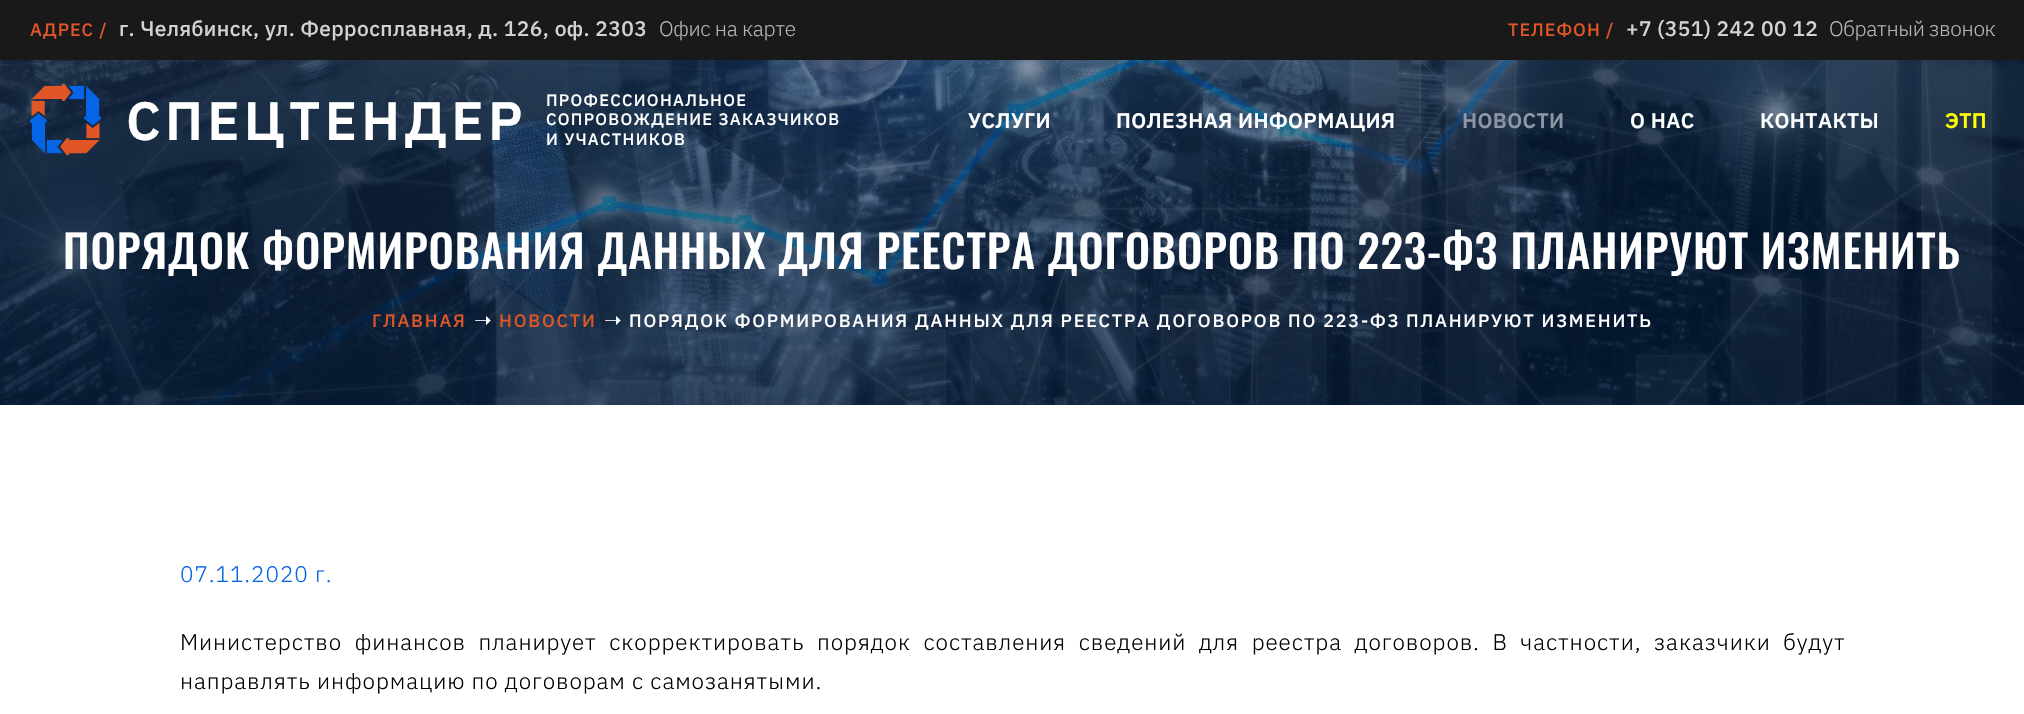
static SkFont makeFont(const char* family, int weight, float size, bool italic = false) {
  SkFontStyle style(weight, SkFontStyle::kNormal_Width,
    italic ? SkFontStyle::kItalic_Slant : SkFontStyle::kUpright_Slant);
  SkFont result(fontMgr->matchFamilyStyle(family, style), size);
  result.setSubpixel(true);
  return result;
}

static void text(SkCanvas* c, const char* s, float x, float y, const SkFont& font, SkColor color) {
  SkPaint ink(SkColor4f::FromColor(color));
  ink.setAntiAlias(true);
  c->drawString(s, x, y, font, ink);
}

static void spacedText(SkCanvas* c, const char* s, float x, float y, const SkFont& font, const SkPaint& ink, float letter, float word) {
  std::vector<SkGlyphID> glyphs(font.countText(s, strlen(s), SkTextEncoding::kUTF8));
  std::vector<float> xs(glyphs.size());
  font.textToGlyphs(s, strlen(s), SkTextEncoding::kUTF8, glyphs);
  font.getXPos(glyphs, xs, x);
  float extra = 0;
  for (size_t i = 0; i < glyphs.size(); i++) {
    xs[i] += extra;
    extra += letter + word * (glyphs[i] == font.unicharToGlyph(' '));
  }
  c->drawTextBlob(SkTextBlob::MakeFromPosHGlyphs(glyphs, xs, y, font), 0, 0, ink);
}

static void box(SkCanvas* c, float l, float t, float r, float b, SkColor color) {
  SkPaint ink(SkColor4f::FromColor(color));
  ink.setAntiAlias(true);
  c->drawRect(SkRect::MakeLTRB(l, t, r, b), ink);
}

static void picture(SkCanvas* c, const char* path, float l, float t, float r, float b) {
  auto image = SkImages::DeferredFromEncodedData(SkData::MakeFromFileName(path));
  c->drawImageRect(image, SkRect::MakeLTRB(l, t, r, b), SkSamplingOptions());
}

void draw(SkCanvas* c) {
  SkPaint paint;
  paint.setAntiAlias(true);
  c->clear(0xffffffff);
  box(c, 0, 0, 2024, 60, 0xff191919);
  SkFont face1 = makeFont("IBM Plex Sans", 500, 18);
  paint.setColor(0xffe05627);
  spacedText(c, "АДРЕС /", 30, 36, face1, paint, 1, 0);
  SkFont face2 = makeFont("IBM Plex Sans", 500, 21);
  paint.setColor(0xffd2d2d2);
  spacedText(c, "г. Челябинск, ул. Ферросплавная, д. 126, оф. 2303", 119, 36, face2, paint, 0.4f, 0);
  SkFont face3 = makeFont("IBM Plex Sans", 300, 21);
  paint.setColor(0xffb6b6b6);
  spacedText(c, "Офис на карте", 659, 36, face3, paint, -0.4f, 0);
  paint.setColor(0xffe05627);
  spacedText(c, "ТЕЛЕФОН /", 1508, 36, face1, paint, 1, 0);
  paint.setColor(0xffd2d2d2);
  spacedText(c, "+7 (351) 242 00 12", 1626, 36, face2, paint, 0.4f, 0);
  paint.setColor(0xffb6b6b6);
  spacedText(c, "Обратный звонок", 1829, 36, face3, paint, -0.4f, 0);
  picture(c, "img_02.png", 0, 60, 2024, 405);
  picture(c, "img_01.png", 30, 84, 102, 156);
  SkFont face4 = makeFont("IBM Plex Sans", 600, 54);
  paint.setColor(0xffffffff);
  spacedText(c, "СПЕЦТЕНДЕР", 126, 140, face4, paint, 4.25f, 0);
  SkFont face5 = makeFont("IBM Plex Sans", 500, 16.5f);
  spacedText(c, "ПРОФЕССИОНАЛЬНОЕ", 546, 106, face5, paint, 1.3f, 0);
  spacedText(c, "СОПРОВОЖДЕНИЕ ЗАКАЗЧИКОВ", 546, 125, face5, paint, 1.3f, 0);
  spacedText(c, "И УЧАСТНИКОВ", 546, 145, face5, paint, 1.3f, 0);
  SkFont face6 = makeFont("IBM Plex Sans", 600, 21);
  spacedText(c, "УСЛУГИ", 968, 128, face6, paint, 0.4f, 0);
  spacedText(c, "ПОЛЕЗНАЯ ИНФОРМАЦИЯ", 1116, 128, face6, paint, 0.4f, 0);
  paint.setColor(0xff8e97a3);
  spacedText(c, "НОВОСТИ", 1462, 128, face6, paint, 0.4f, 0);
  paint.setColor(0xffffffff);
  spacedText(c, "О НАС", 1630, 128, face6, paint, 0.4f, 0);
  spacedText(c, "КОНТАКТЫ", 1760, 128, face6, paint, 0.4f, 0);
  paint.setColor(0xffffff00);
  spacedText(c, "ЭТП", 1945, 128, face6, paint, 0.4f, 0);
  SkFont face7 = makeFont("Oswald", 500, 45);
  paint.setColor(0xffffffff);
  spacedText(c, "ПОРЯДОК ФОРМИРОВАНИЯ ДАННЫХ ДЛЯ РЕЕСТРА ДОГОВОРОВ ПО 223-ФЗ ПЛАНИРУЮТ ИЗМЕНИТЬ", 63, 269, face7, paint, 0.9f, 0);
  paint.setColor(0xffe05627);
  spacedText(c, "ГЛАВНАЯ", 372, 327, face1, paint, 1.8f, 0);
  SkFont face8 = makeFont("DejaVu Sans", 400, 21);
  text(c, "➝", 474, 327, face8, 0xffffffff);
  spacedText(c, "НОВОСТИ", 499, 327, face1, paint, 1.8f, 0);
  text(c, "➝", 604, 327, face8, 0xffffffff);
  paint.setColor(0xffffffff);
  spacedText(c, "ПОРЯДОК ФОРМИРОВАНИЯ ДАННЫХ ДЛЯ РЕЕСТРА ДОГОВОРОВ ПО 223-ФЗ ПЛАНИРУЮТ ИЗМЕНИТЬ", 629, 327, face1, paint, 1.8f, 0);
  SkFont face9 = makeFont("IBM Plex Sans", 300, 22.5f);
  paint.setColor(0xff0665e6);
  spacedText(c, "07.11.2020 г.", 180, 582, face9, paint, 0.9f, 0);
  paint.setColor(0xff000000);
  spacedText(c, "Министерство финансов планирует скорректировать порядок составления сведений для реестра договоров. В частности, заказчики будут", 180, 650, face9, paint, 0.9f, 6.4f);
  spacedText(c, "направлять информацию по договорам с самозанятыми.", 180, 689, face9, paint, 0.9f, 0);
}
